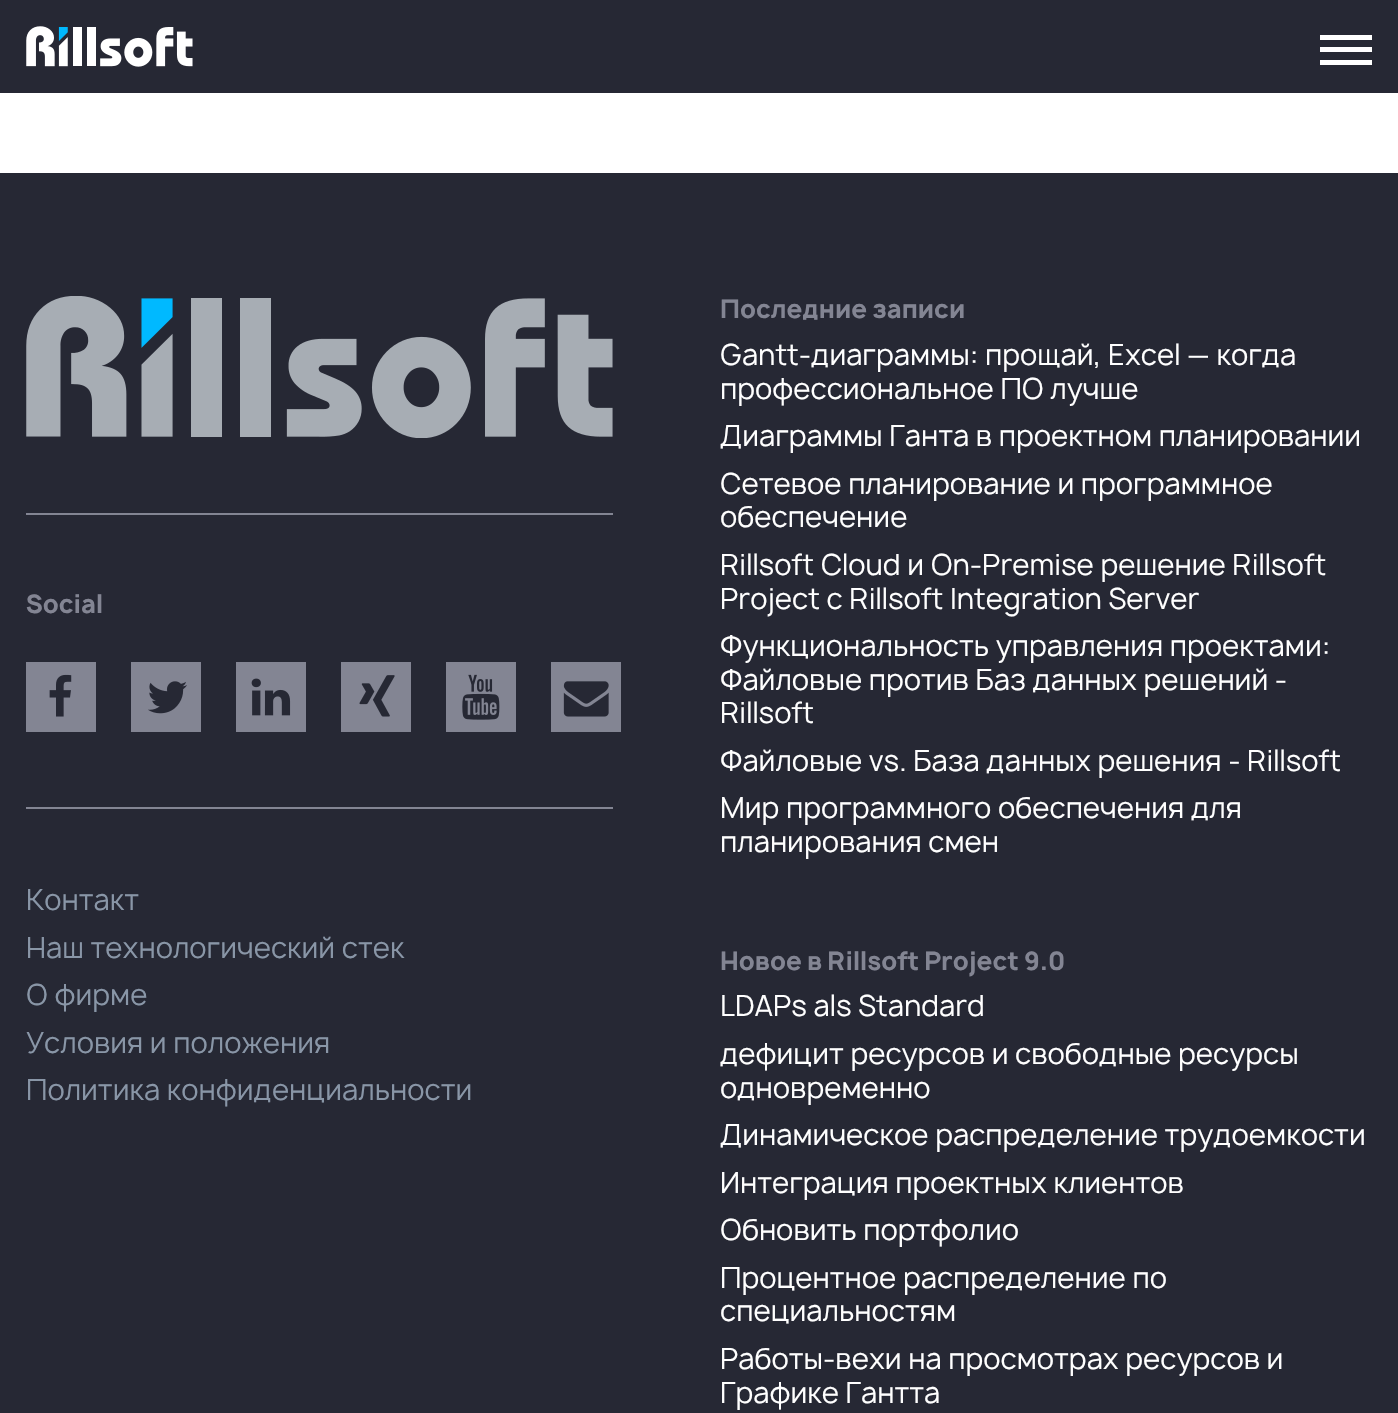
static SkFont makeFont(const char* family, int weight, float size, bool italic = false) {
  SkFontStyle style(weight, SkFontStyle::kNormal_Width,
    italic ? SkFontStyle::kItalic_Slant : SkFontStyle::kUpright_Slant);
  SkFont result(fontMgr->matchFamilyStyle(family, style), size);
  result.setSubpixel(true);
  return result;
}

static void text(SkCanvas* c, const char* s, float x, float y, const SkFont& font, SkColor color) {
  SkPaint ink(SkColor4f::FromColor(color));
  ink.setAntiAlias(true);
  c->drawString(s, x, y, font, ink);
}

static void box(SkCanvas* c, float l, float t, float r, float b, SkColor color) {
  SkPaint ink(SkColor4f::FromColor(color));
  ink.setAntiAlias(true);
  c->drawRect(SkRect::MakeLTRB(l, t, r, b), ink);
}

static void picture(SkCanvas* c, const char* path, float l, float t, float r, float b) {
  auto image = SkImages::DeferredFromEncodedData(SkData::MakeFromFileName(path));
  c->drawImageRect(image, SkRect::MakeLTRB(l, t, r, b), SkSamplingOptions());
}

void draw(SkCanvas* c) {
  SkPaint paint;
  paint.setAntiAlias(true);
  c->clear(0xffffffff);
  box(c, 0, 0, 1398, 93, 0xff262834);
  picture(c, "img_01.png", 26, 26, 193, 67);
  box(c, 1320, 47, 1372, 52, 0xffffffff);
  box(c, 1320, 35, 1372, 40, 0xffffffff);
  box(c, 1320, 60, 1372, 65, 0xffffffff);
  box(c, 0, 173, 1398, 1413, 0xff262834);
  picture(c, "img_02.png", 26, 296, 613, 438);
  box(c, 26, 513, 613, 515, 0xff838593);
  SkFont face1 = makeFont("Manrope", 800, 24.5f);
  text(c, "Social", 26, 613, face1, 0xff838593);
  box(c, 26, 662, 96, 732, 0xff838593);
  picture(c, "img_03.png", 49, 674, 72, 717);
  box(c, 131, 662, 201, 732, 0xff838593);
  picture(c, "img_04.png", 148, 681, 187, 714);
  box(c, 236, 662, 306, 732, 0xff838593);
  picture(c, "img_05.png", 251, 678, 291, 716);
  box(c, 341, 662, 411, 732, 0xff838593);
  picture(c, "img_06.png", 359, 675, 395, 717);
  box(c, 446, 662, 516, 732, 0xff838593);
  picture(c, "img_07.png", 462, 674, 500, 720);
  box(c, 551, 662, 621, 732, 0xff838593);
  picture(c, "img_08.png", 563, 681, 609, 717);
  box(c, 26, 807, 613, 809, 0xff838593);
  SkFont face2 = makeFont("Manrope", 400, 28);
  text(c, "Контакт", 26, 910, face2, 0xff8996a7);
  text(c, "Наш технологический стек", 26, 958, face2, 0xff8996a7);
  text(c, "О фирме", 26, 1005, face2, 0xff8996a7);
  text(c, "Условия и положения", 26, 1053, face2, 0xff8996a7);
  text(c, "Политика конфиденциальности", 26, 1100, face2, 0xff8996a7);
  text(c, "Последние записи", 720, 318, face1, 0xff838593);
  text(c, "Gantt-диаграммы: прощай, Excel — когда", 720, 365, face2, 0xffffffff);
  text(c, "профессиональное ПО лучше", 720, 399, face2, 0xffffffff);
  text(c, "Диаграммы Ганта в проектном планировании", 720, 446, face2, 0xffffffff);
  text(c, "Сетевое планирование и программное", 720, 494, face2, 0xffffffff);
  text(c, "обеспечение", 720, 527, face2, 0xffffffff);
  text(c, "Rillsoft Cloud и On-Premise решение Rillsoft", 720, 575, face2, 0xffffffff);
  text(c, "Project с Rillsoft Integration Server", 720, 609, face2, 0xffffffff);
  text(c, "Функциональность управления проектами:", 720, 656, face2, 0xffffffff);
  text(c, "Файловые против Баз данных решений -", 720, 690, face2, 0xffffffff);
  text(c, "Rillsoft", 720, 723, face2, 0xffffffff);
  text(c, "Файловые vs. База данных решения - Rillsoft", 720, 771, face2, 0xffffffff);
  text(c, "Мир программного обеспечения для", 720, 818, face2, 0xffffffff);
  text(c, "планирования смен", 720, 852, face2, 0xffffffff);
  text(c, "Новое в Rillsoft Project 9.0", 720, 970, face1, 0xff838593);
  text(c, "LDAPs als Standard", 720, 1016, face2, 0xffffffff);
  text(c, "дефицит ресурсов и свободные ресурсы", 720, 1064, face2, 0xffffffff);
  text(c, "одновременно", 720, 1098, face2, 0xffffffff);
  text(c, "Динамическое распределение трудоемкости", 720, 1145, face2, 0xffffffff);
  text(c, "Интеграция проектных клиентов", 720, 1193, face2, 0xffffffff);
  text(c, "Обновить портфолио", 720, 1240, face2, 0xffffffff);
  text(c, "Процентное распределение по", 720, 1288, face2, 0xffffffff);
  text(c, "специальностям", 720, 1321, face2, 0xffffffff);
  text(c, "Работы-вехи на просмотрах ресурсов и", 720, 1369, face2, 0xffffffff);
  text(c, "Графике Гантта", 720, 1403, face2, 0xffffffff);
}
